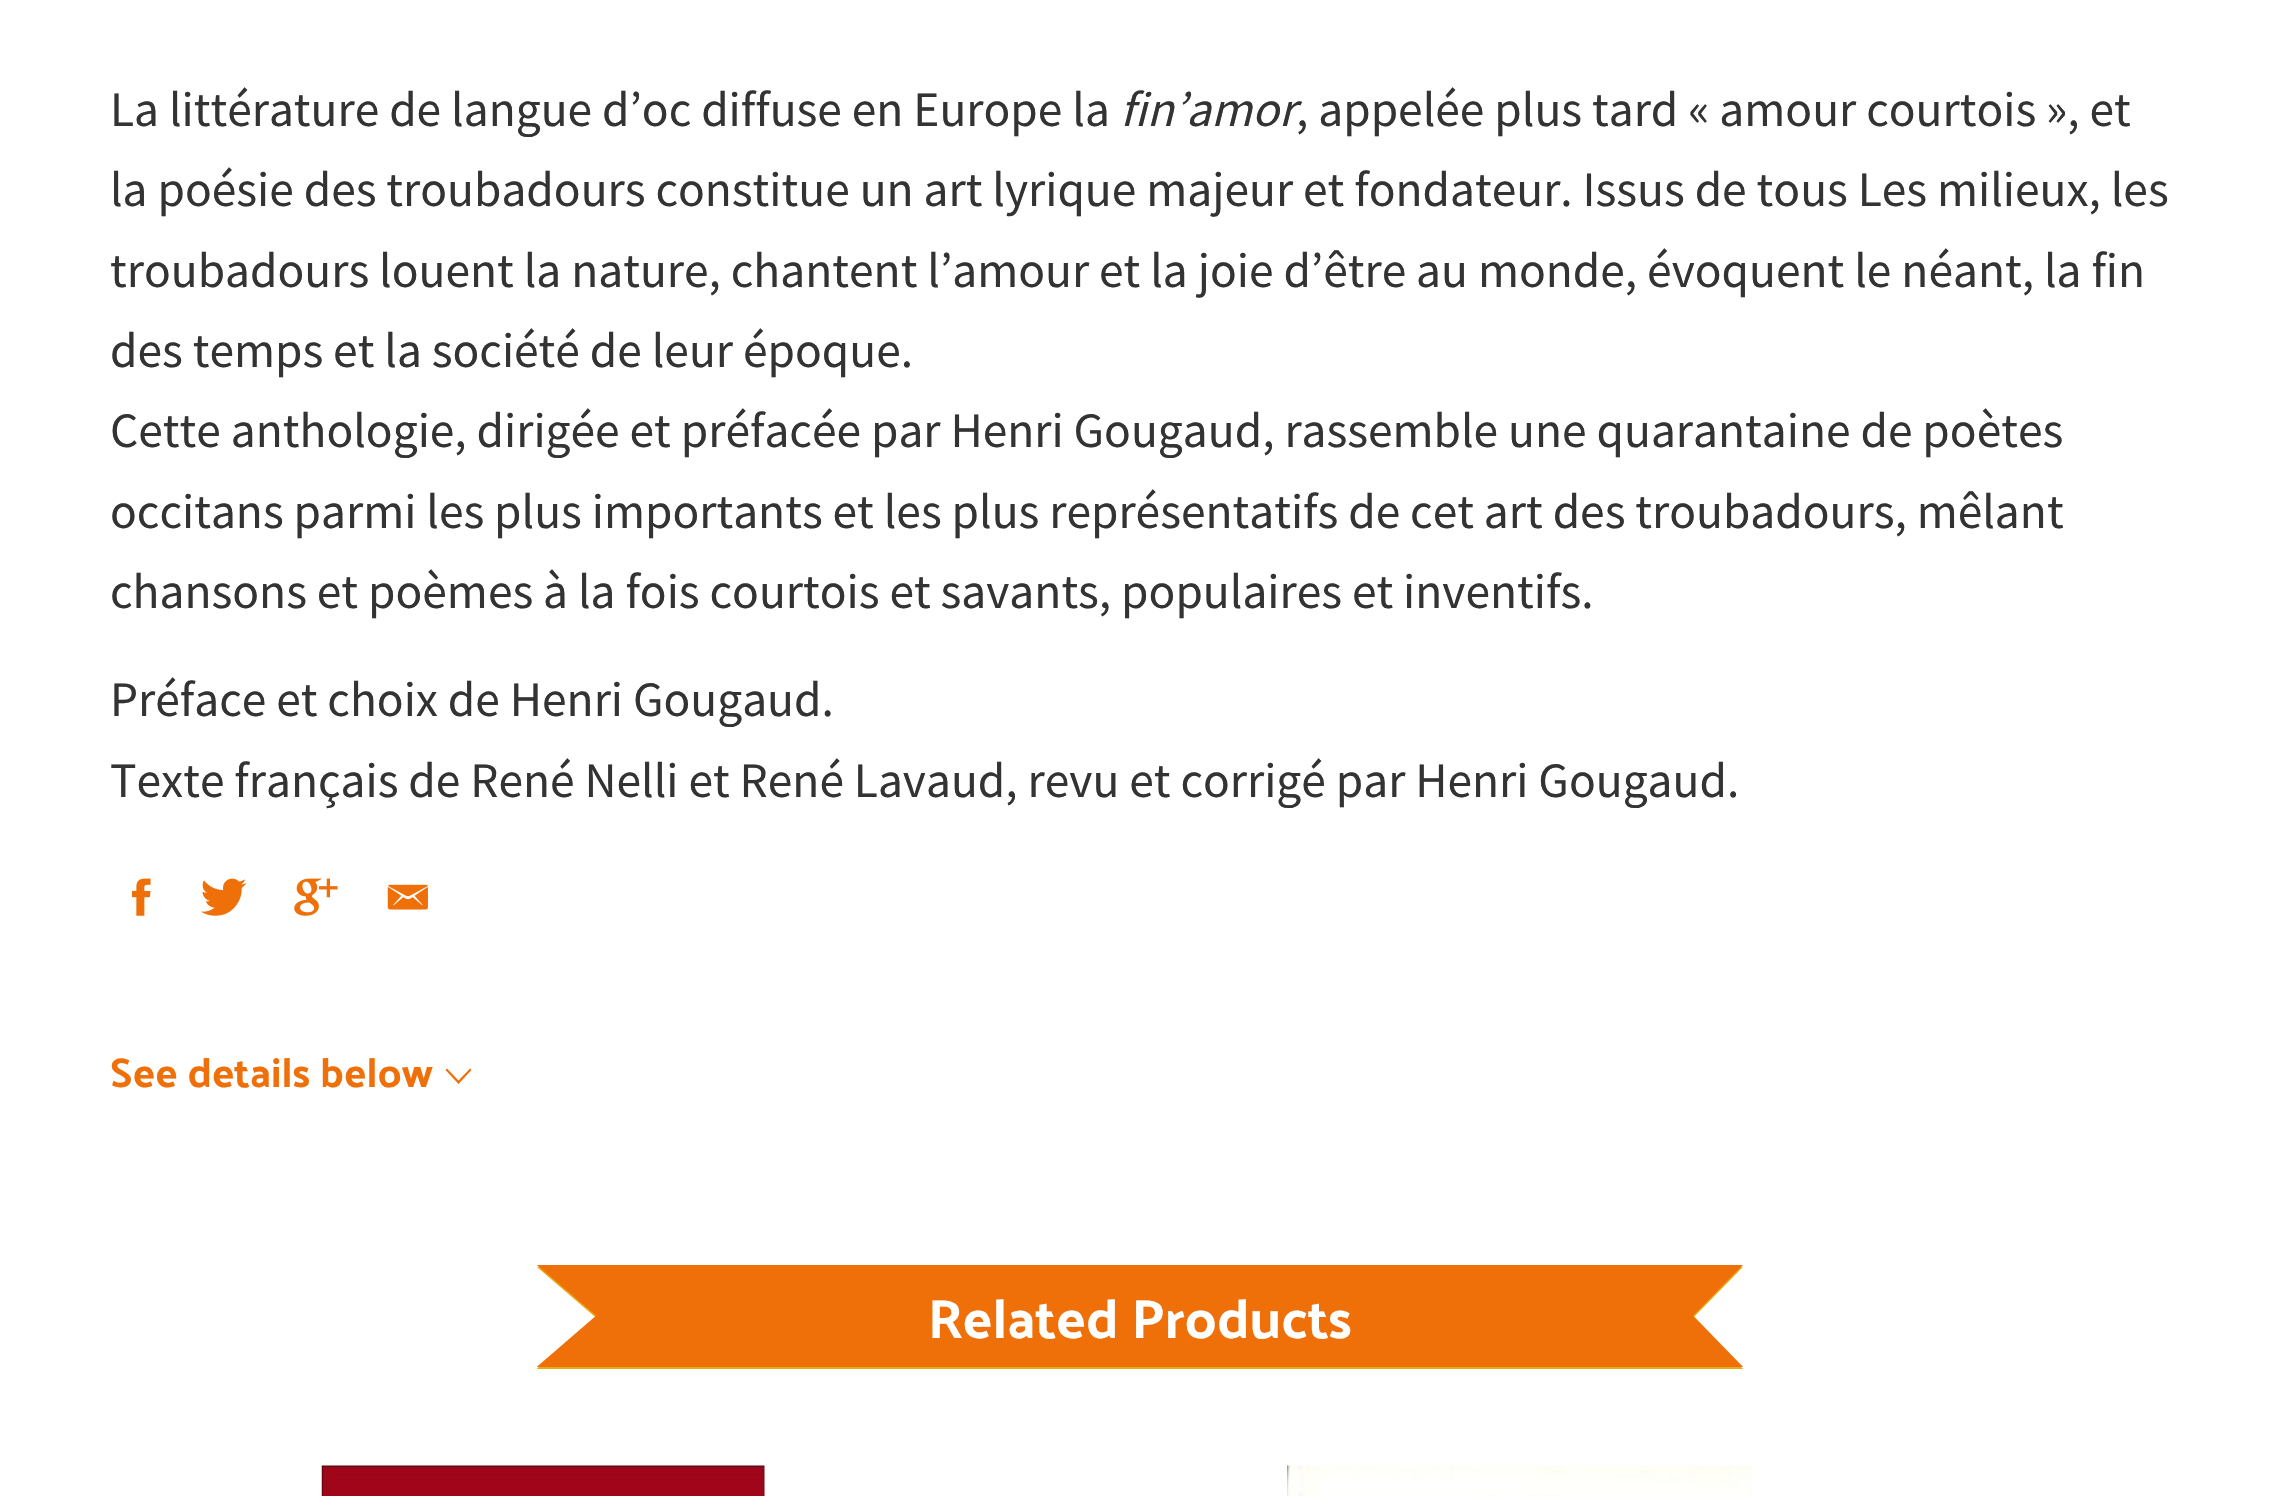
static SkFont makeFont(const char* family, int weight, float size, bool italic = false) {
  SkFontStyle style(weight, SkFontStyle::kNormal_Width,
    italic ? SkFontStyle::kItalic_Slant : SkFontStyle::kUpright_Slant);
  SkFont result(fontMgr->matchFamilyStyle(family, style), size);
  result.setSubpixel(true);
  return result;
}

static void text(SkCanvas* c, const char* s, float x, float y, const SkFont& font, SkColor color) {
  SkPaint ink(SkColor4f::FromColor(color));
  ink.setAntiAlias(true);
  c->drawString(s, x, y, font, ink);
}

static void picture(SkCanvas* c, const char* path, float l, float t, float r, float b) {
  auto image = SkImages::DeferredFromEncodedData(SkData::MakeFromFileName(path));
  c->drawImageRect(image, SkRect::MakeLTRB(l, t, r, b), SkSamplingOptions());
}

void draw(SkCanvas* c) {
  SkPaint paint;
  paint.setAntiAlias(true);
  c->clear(0xffffffff);
  SkFont face1 = makeFont("Source Sans Pro", 400, 49.5f);
  text(c, "La littérature de langue d’oc diffuse en Europe la", 110, 126, face1, 0xff333333);
  SkFont face2 = makeFont("Source Sans Pro", 400, 49.5f, true);
  text(c, "fin’amor", 1120, 126, face2, 0xff333333);
  text(c, ", appelée plus tard « amour courtois », et", 1296, 126, face1, 0xff333333);
  text(c, "la poésie des troubadours constitue un art lyrique majeur et fondateur. Issus de tous Les milieux, les", 110, 206, face1, 0xff333333);
  text(c, "troubadours louent la nature, chantent l’amour et la joie d’être au monde, évoquent le néant, la fin", 110, 287, face1, 0xff333333);
  text(c, "des temps et la société de leur époque.", 110, 367, face1, 0xff333333);
  text(c, "Cette anthologie, dirigée et préfacée par Henri Gougaud, rassemble une quarantaine de poètes", 110, 447, face1, 0xff333333);
  text(c, "occitans parmi les plus importants et les plus représentatifs de cet art des troubadours, mêlant", 110, 528, face1, 0xff333333);
  text(c, "chansons et poèmes à la fois courtois et savants, populaires et inventifs.", 110, 608, face1, 0xff333333);
  text(c, "Préface et choix de Henri Gougaud.", 110, 716, face1, 0xff333333);
  text(c, "Texte français de René Nelli et René Lavaud, revu et corrigé par Henri Gougaud.", 110, 797, face1, 0xff333333);
  picture(c, "img_01.png", 132, 878, 151, 916);
  picture(c, "img_02.png", 201, 878, 247, 916);
  picture(c, "img_03.png", 294, 878, 338, 916);
  picture(c, "img_04.png", 387, 884, 428, 910);
  SkFont face3 = makeFont("Palanquin Dark", 400, 41.25f);
  text(c, "See details below", 110, 1087, face3, 0xffef7009);
  paint.setColor(0xffef7009);
  c->drawPath(SkPathBuilder().moveTo(470, 1068.5f).lineTo(471.5f, 1070).lineTo(458.5f, 1084).lineTo(445.5f, 1070).lineTo(447, 1068.5f).lineTo(458.5f, 1080.5f).close().detach(), paint);
  picture(c, "img_05.png", 536, 1265, 1743, 1369);
  SkFont face4 = makeFont("Palanquin Dark", 400, 55);
  text(c, "Related Products", 928, 1338, face4, 0xffffffff);
  picture(c, "img_06.png", 321, 1465, 765, 1496);
  picture(c, "img_07.png", 1287, 1465, 1752, 1496);
}
